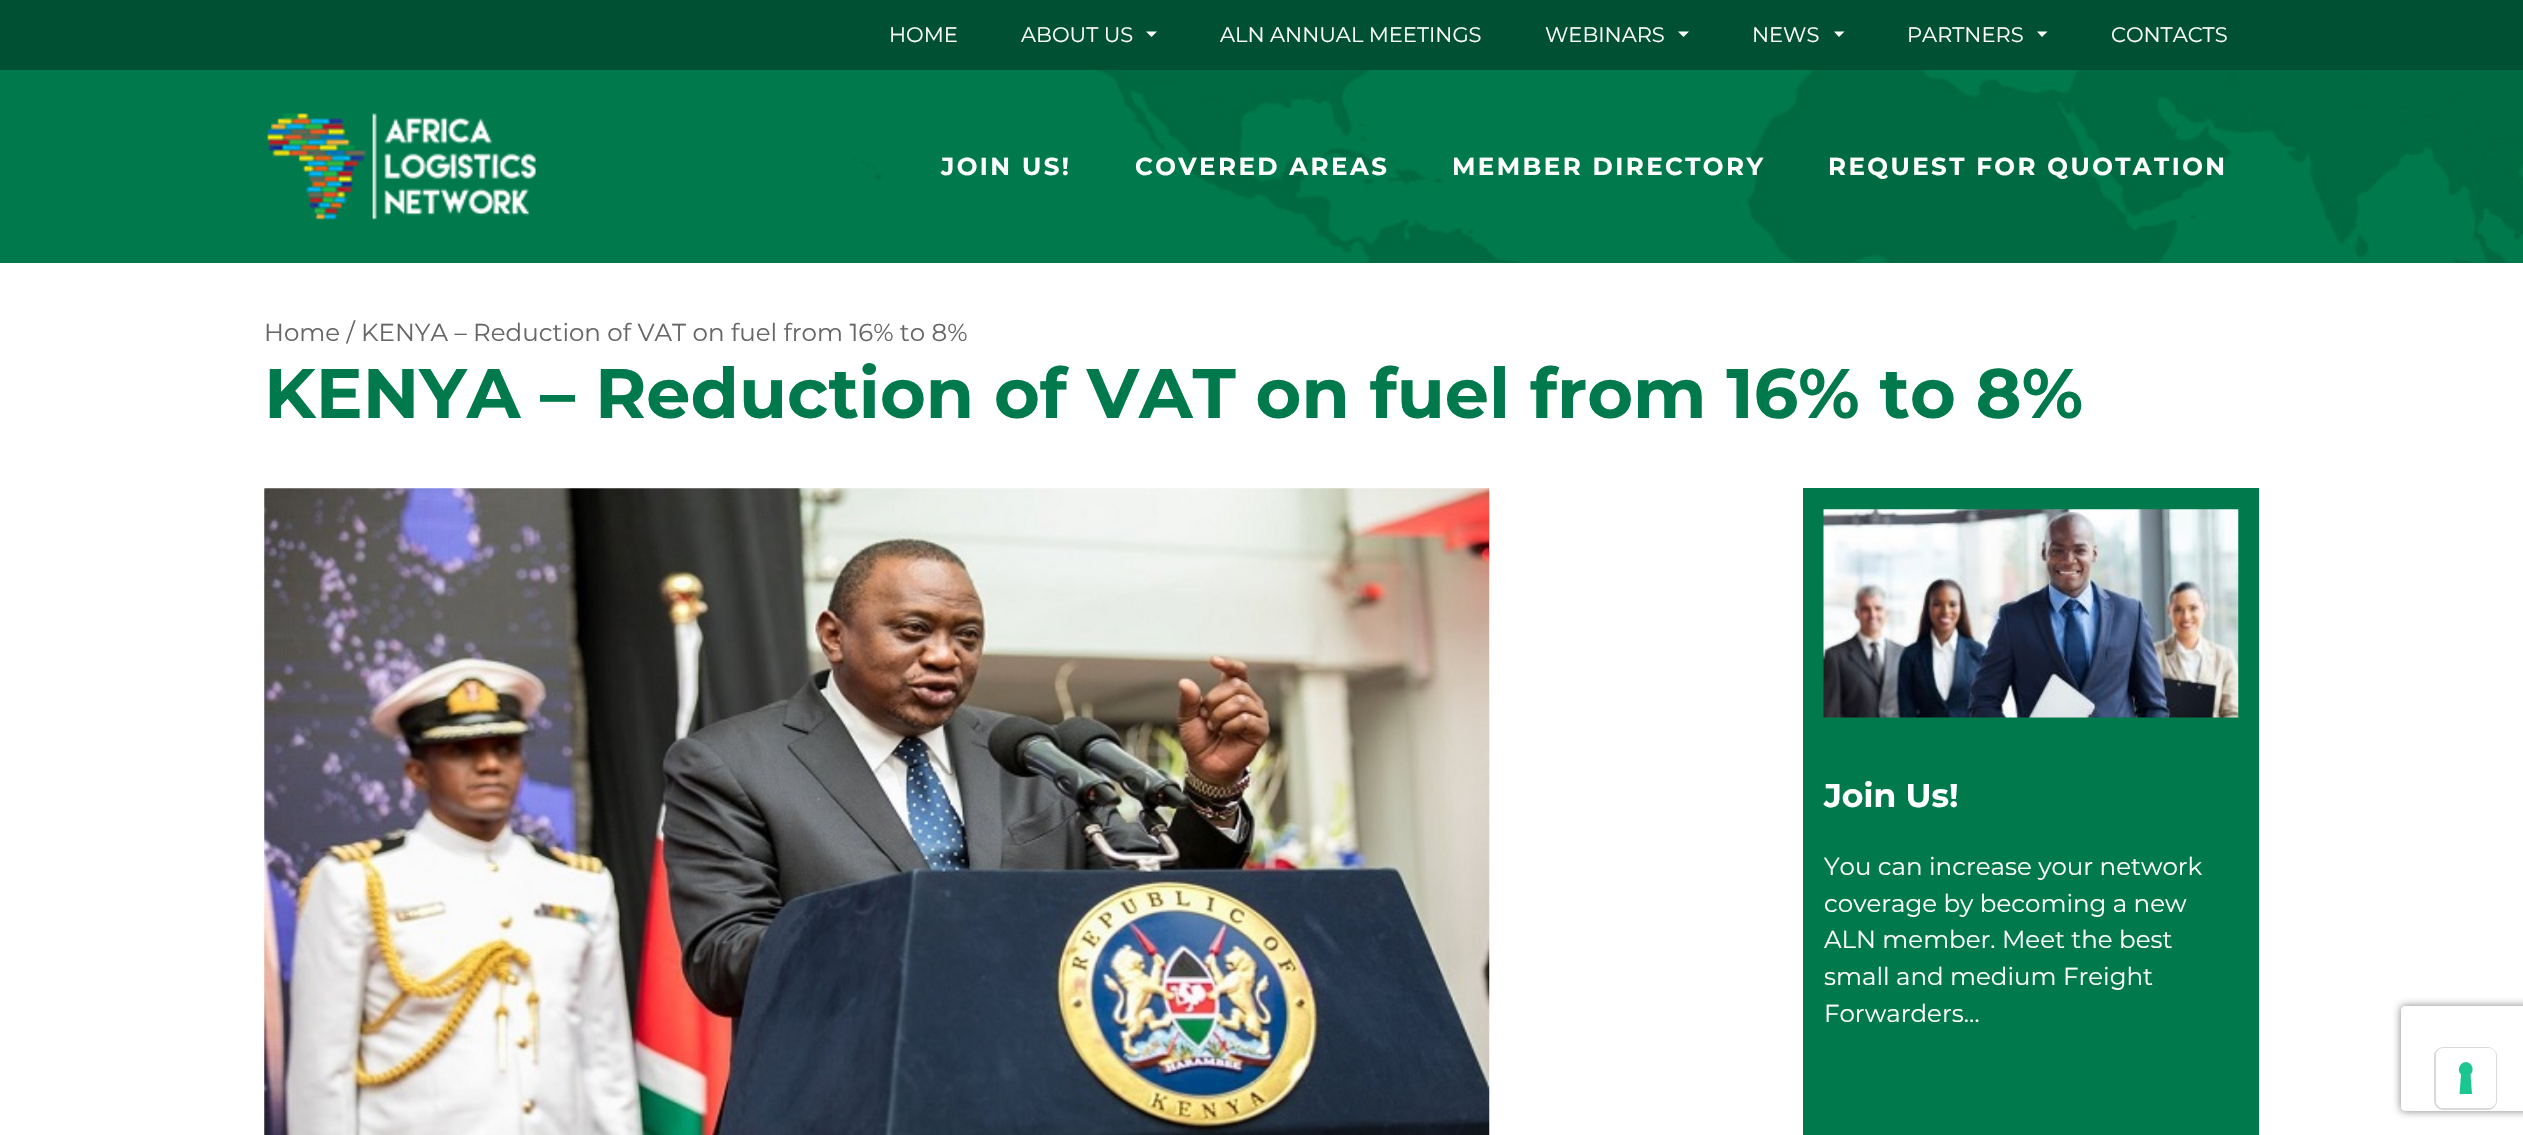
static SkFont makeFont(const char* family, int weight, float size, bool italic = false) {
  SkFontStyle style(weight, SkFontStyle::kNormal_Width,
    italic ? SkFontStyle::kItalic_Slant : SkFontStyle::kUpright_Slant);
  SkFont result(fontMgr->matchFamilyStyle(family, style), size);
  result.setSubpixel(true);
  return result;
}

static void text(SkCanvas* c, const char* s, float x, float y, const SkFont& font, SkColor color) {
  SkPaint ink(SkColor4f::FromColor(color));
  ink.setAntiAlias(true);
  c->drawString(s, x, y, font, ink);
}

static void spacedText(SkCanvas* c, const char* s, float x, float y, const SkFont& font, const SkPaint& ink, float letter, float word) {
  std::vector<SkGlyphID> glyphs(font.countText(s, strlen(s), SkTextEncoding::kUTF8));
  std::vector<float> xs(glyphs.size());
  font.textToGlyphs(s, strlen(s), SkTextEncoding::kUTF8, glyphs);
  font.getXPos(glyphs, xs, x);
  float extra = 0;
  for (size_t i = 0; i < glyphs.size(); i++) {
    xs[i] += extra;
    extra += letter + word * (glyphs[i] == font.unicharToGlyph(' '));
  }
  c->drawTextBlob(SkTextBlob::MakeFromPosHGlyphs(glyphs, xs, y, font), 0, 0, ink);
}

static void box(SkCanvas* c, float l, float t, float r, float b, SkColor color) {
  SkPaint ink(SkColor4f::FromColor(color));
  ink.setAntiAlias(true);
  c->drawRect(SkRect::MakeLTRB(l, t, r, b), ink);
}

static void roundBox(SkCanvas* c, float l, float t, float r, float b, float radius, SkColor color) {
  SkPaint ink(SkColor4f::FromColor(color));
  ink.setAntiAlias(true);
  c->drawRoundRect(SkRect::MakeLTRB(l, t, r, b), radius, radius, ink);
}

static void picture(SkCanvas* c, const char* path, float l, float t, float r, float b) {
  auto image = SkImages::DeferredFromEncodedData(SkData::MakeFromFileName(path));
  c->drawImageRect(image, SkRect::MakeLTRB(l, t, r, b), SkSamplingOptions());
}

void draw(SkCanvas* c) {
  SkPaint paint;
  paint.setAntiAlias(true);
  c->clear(0xffffffff);
  box(c, 0, 0, 2523, 70, 0xff005133);
  SkFont face1 = makeFont("Montserrat", 400, 21);
  text(c, "HOME", 889, 42, face1, 0xffffffff);
  text(c, "ABOUT US", 1021, 42, face1, 0xffffffff);
  paint.setColor(0xffffffff);
  c->drawPath(SkPathBuilder().moveTo(1146, 31.5f).lineTo(1157, 31.5f).lineTo(1151.5f, 37).close().detach(), paint);
  text(c, "ALN ANNUAL MEETINGS", 1220, 42, face1, 0xffffffff);
  text(c, "WEBINARS", 1545, 42, face1, 0xffffffff);
  c->drawPath(SkPathBuilder().moveTo(1678, 31.5f).lineTo(1689, 31.5f).lineTo(1683.5f, 37).close().detach(), paint);
  text(c, "NEWS", 1752, 42, face1, 0xffffffff);
  c->drawPath(SkPathBuilder().moveTo(1834, 31.5f).lineTo(1844.5f, 31.5f).lineTo(1839, 37).close().detach(), paint);
  text(c, "PARTNERS", 1907, 42, face1, 0xffffffff);
  c->drawPath(SkPathBuilder().moveTo(2037, 31.5f).lineTo(2047.5f, 31.5f).lineTo(2042, 37).close().detach(), paint);
  text(c, "CONTACTS", 2111, 42, face1, 0xffffffff);
  box(c, 0, 70, 2523, 263, 0xff007a4d);
  picture(c, "img_01.png", 853, 70, 2523, 263);
  picture(c, "img_02.png", 267, 113, 536, 220);
  SkFont face2 = makeFont("Montserrat", 700, 24.5f);
  spacedText(c, "JOIN US!", 941, 175, face2, paint, 2.45f, 0);
  spacedText(c, "COVERED AREAS", 1135, 175, face2, paint, 2.45f, 0);
  spacedText(c, "MEMBER DIRECTORY", 1452, 175, face2, paint, 2.45f, 0);
  spacedText(c, "REQUEST FOR QUOTATION", 1828, 175, face2, paint, 2.45f, 0);
  SkFont face3 = makeFont("Montserrat", 400, 24.5f);
  text(c, "Home / KENYA – Reduction of VAT on fuel from 16% to 8%", 264, 341, face3, 0xff666666);
  SkFont face4 = makeFont("Montserrat", 700, 70);
  text(c, "KENYA – Reduction of VAT on fuel from 16% to 8%", 264, 418, face4, 0xff007a4d);
  picture(c, "img_03.png", 264, 488, 1490, 1135);
  box(c, 1803, 488, 2259, 1135, 0xff007a4d);
  picture(c, "img_04.png", 1823, 509, 2239, 718);
  SkFont face5 = makeFont("Montserrat", 700, 33);
  text(c, "Join Us!", 1824, 807, face5, 0xffffffff);
  text(c, "You can increase your network", 1824, 875, face3, 0xffffffff);
  text(c, "coverage by becoming a new", 1824, 912, face3, 0xffffffff);
  text(c, "ALN member. Meet the best", 1824, 948, face3, 0xffffffff);
  text(c, "small and medium Freight", 1824, 985, face3, 0xffffffff);
  text(c, "Forwarders…", 1824, 1022, face3, 0xffffffff);
  c->save();
  c->clipPath(SkPathBuilder(SkPathFillType::kEvenOdd).moveTo(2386, 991).lineTo(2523, 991).lineTo(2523, 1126).lineTo(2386, 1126).close().moveTo(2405, 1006).lineTo(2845, 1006).cubicTo(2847, 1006, 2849, 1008, 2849, 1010).lineTo(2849, 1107).cubicTo(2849, 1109, 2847, 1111, 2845, 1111).lineTo(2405, 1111).cubicTo(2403, 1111, 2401, 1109, 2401, 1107).lineTo(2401, 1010).cubicTo(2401, 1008, 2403, 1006, 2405, 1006).close().detach(), true);
  paint.setColor(0xff808080);
  paint.setMaskFilter(SkMaskFilter::MakeBlur(kNormal_SkBlurStyle, 4.5f));
  c->drawRoundRect(SkRect::MakeLTRB(2401, 1006, 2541, 1111), 4, 4, paint);
  paint.setMaskFilter(nullptr);
  c->restore();
  paint.setStyle(SkPaint::kStroke_Style);
  paint.setStrokeWidth(2);
  paint.setColor(0xffd9d9d9);
  c->drawRoundRect(SkRect::MakeLTRB(2435, 1048, 2496, 1109), 8, 8, paint);
  roundBox(c, 2436, 1048, 2496, 1108, 7, 0xffffffff);
  paint.setStyle(SkPaint::kFill_Style);
  paint.setColor(0xff1cc691);
  c->drawPath(SkPathBuilder(SkPathFillType::kEvenOdd).moveTo(2466, 1062).cubicTo(2472, 1062.5f, 2475, 1070.5f, 2470.5f, 1074.5f).lineTo(2472, 1094).lineTo(2459.5f, 1094).lineTo(2461, 1074.5f).cubicTo(2456.5f, 1070.5f, 2459.5f, 1062.5f, 2466, 1062).close().detach(), paint);
}
